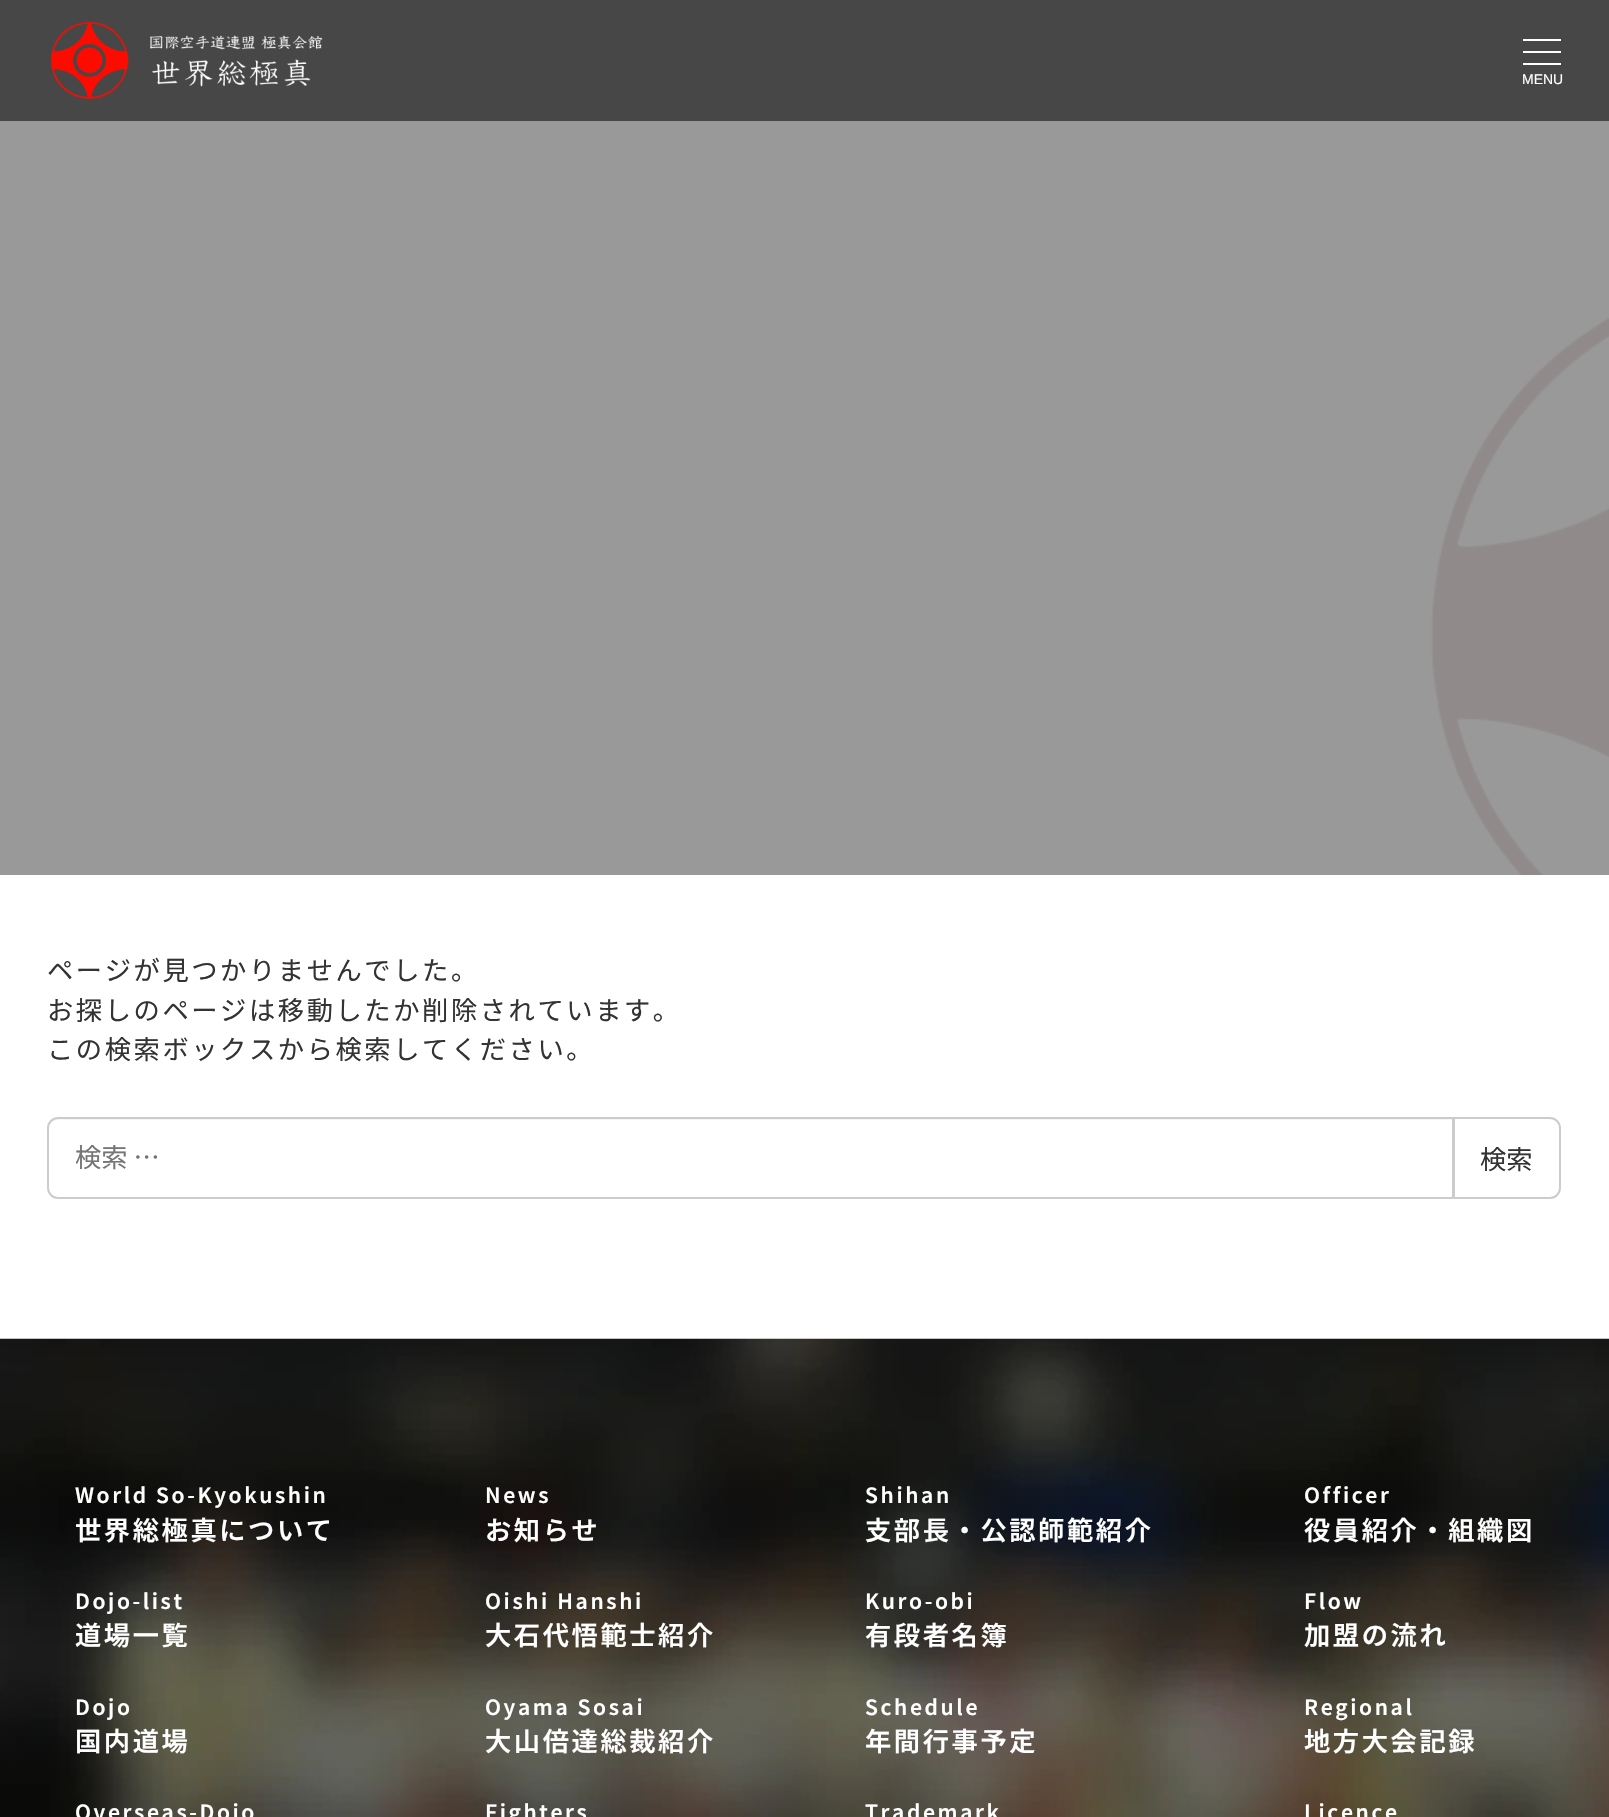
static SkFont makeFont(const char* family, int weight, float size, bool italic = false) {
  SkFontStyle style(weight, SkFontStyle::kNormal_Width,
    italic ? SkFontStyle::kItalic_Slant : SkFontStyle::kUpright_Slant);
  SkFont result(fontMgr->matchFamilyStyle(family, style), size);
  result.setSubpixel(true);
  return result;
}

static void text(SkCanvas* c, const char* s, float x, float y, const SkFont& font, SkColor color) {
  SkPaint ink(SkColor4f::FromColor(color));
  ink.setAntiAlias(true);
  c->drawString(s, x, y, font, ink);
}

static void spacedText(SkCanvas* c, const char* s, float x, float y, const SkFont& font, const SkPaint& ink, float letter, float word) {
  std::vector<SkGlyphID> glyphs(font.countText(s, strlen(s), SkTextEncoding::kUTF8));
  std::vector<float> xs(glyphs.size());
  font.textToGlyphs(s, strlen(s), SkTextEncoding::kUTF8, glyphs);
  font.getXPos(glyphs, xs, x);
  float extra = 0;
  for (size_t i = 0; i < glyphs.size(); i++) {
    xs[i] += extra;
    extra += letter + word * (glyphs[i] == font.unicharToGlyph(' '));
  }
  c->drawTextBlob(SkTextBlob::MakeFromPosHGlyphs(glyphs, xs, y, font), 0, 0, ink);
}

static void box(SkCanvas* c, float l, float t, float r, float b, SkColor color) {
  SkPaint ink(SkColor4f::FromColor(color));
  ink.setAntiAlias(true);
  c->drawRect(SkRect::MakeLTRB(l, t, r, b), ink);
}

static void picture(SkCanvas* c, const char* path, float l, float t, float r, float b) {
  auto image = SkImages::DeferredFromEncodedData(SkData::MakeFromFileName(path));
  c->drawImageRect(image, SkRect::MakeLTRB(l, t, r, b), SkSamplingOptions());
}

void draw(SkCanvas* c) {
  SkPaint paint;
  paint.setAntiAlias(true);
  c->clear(0xffffffff);
  box(c, 0, 0, 1609, 121, 0xff474747);
  picture(c, "img_01.png", 50, 21, 323, 100);
  box(c, 1523, 39, 1561, 41, 0xffffffff);
  box(c, 1523, 51, 1561, 53, 0xffffffff);
  box(c, 1523, 63, 1561, 65, 0xffffffff);
  SkFont face1 = makeFont("Liberation Sans", 400, 14);
  text(c, "MENU", 1522, 84, face1, 0xffffffff);
  picture(c, "img_02.png", 0, 121, 1609, 875);
  SkFont face2 = makeFont("Noto Sans JP", 400, 26.25f);
  paint.setColor(0xff333333);
  spacedText(c, "ページが見つかりませんでした。", 47, 980, face2, paint, 2.6f, 0);
  spacedText(c, "お探しのページは移動したか削除されています。", 47, 1020, face2, paint, 2.6f, 0);
  spacedText(c, "この検索ボックスから検索してください。", 47, 1059, face2, paint, 2.6f, 0);
  paint.setStyle(SkPaint::kStroke_Style);
  paint.setStrokeWidth(2);
  paint.setColor(0xffcccccc);
  c->drawPath(SkPathBuilder().moveTo(1454, 1118).lineTo(1550, 1118).cubicTo(1555.5f, 1118, 1560, 1122.5f, 1560, 1128).lineTo(1560, 1188).cubicTo(1560, 1193.5f, 1555.5f, 1198, 1550, 1198).lineTo(1454, 1198).close().detach(), paint);
  paint.setStyle(SkPaint::kFill_Style);
  paint.setColor(0xffffffff);
  c->drawPath(SkPathBuilder().moveTo(58, 1117).lineTo(1454, 1117).lineTo(1454, 1199).lineTo(58, 1199).cubicTo(52, 1199, 47, 1194, 47, 1188).lineTo(47, 1128).cubicTo(47, 1122, 52, 1117, 58, 1117).close().detach(), paint);
  paint.setColor(0xfff6f6f6);
  c->drawPath(SkPathBuilder().moveTo(58, 1120).lineTo(1452, 1120).lineTo(1452, 1197).lineTo(1453, 1197).lineTo(1453, 1118).lineTo(58, 1118).cubicTo(53, 1118, 49, 1122, 49, 1127).lineTo(49, 1129).cubicTo(49, 1124, 53, 1120, 58, 1120).close().detach(), paint);
  paint.setStyle(SkPaint::kStroke_Style);
  paint.setColor(0xffcccccc);
  c->drawPath(SkPathBuilder().moveTo(58, 1118).lineTo(1453, 1118).lineTo(1453, 1198).lineTo(58, 1198).cubicTo(52.5f, 1198, 48, 1193.5f, 48, 1188).lineTo(48, 1128).cubicTo(48, 1122.5f, 52.5f, 1118, 58, 1118).close().detach(), paint);
  text(c, "検索 …", 75, 1167, face2, 0xff757575);
  text(c, "検索", 1480, 1169, face2, 0xff333333);
  picture(c, "img_03.png", 0, 1338, 1609, 1817);
  SkFont face3 = makeFont("Noto Sans JP", 600, 21);
  paint.setStyle(SkPaint::kFill_Style);
  paint.setColor(0xffffffff);
  spacedText(c, "World So-Kyokushin", 75, 1503, face3, paint, 2.6f, 0);
  SkFont face4 = makeFont("Noto Sans JP", 600, 26.25f);
  spacedText(c, "世界総極真について", 75, 1540, face4, paint, 2.6f, 0);
  spacedText(c, "Dojo-list", 75, 1609, face3, paint, 2.6f, 0);
  spacedText(c, "道場一覧", 75, 1645, face4, paint, 2.6f, 0);
  spacedText(c, "Dojo", 75, 1715, face3, paint, 2.6f, 0);
  spacedText(c, "国内道場", 75, 1751, face4, paint, 2.6f, 0);
  spacedText(c, "Overseas-Dojo", 75, 1820, face3, paint, 2.6f, 0);
  spacedText(c, "News", 485, 1503, face3, paint, 2.6f, 0);
  spacedText(c, "お知らせ", 485, 1540, face4, paint, 2.6f, 0);
  spacedText(c, "Oishi Hanshi", 485, 1609, face3, paint, 2.6f, 0);
  spacedText(c, "大石代悟範士紹介", 485, 1645, face4, paint, 2.6f, 0);
  spacedText(c, "Oyama Sosai", 485, 1715, face3, paint, 2.6f, 0);
  spacedText(c, "大山倍達総裁紹介", 485, 1751, face4, paint, 2.6f, 0);
  spacedText(c, "Fighters", 485, 1820, face3, paint, 2.6f, 0);
  spacedText(c, "Shihan", 865, 1503, face3, paint, 2.6f, 0);
  spacedText(c, "支部長・公認師範紹介", 865, 1540, face4, paint, 2.6f, 0);
  spacedText(c, "Kuro-obi", 865, 1609, face3, paint, 2.6f, 0);
  spacedText(c, "有段者名簿", 865, 1645, face4, paint, 2.6f, 0);
  spacedText(c, "Schedule", 865, 1715, face3, paint, 2.6f, 0);
  spacedText(c, "年間行事予定", 865, 1751, face4, paint, 2.6f, 0);
  spacedText(c, "Trademark", 865, 1820, face3, paint, 2.6f, 0);
  spacedText(c, "Officer", 1304, 1503, face3, paint, 2.6f, 0);
  spacedText(c, "役員紹介・組織図", 1304, 1540, face4, paint, 2.6f, 0);
  spacedText(c, "Flow", 1304, 1609, face3, paint, 2.6f, 0);
  spacedText(c, "加盟の流れ", 1304, 1645, face4, paint, 2.6f, 0);
  spacedText(c, "Regional", 1304, 1715, face3, paint, 2.6f, 0);
  spacedText(c, "地方大会記録", 1304, 1751, face4, paint, 2.6f, 0);
  spacedText(c, "Licence", 1304, 1820, face3, paint, 2.6f, 0);
}
